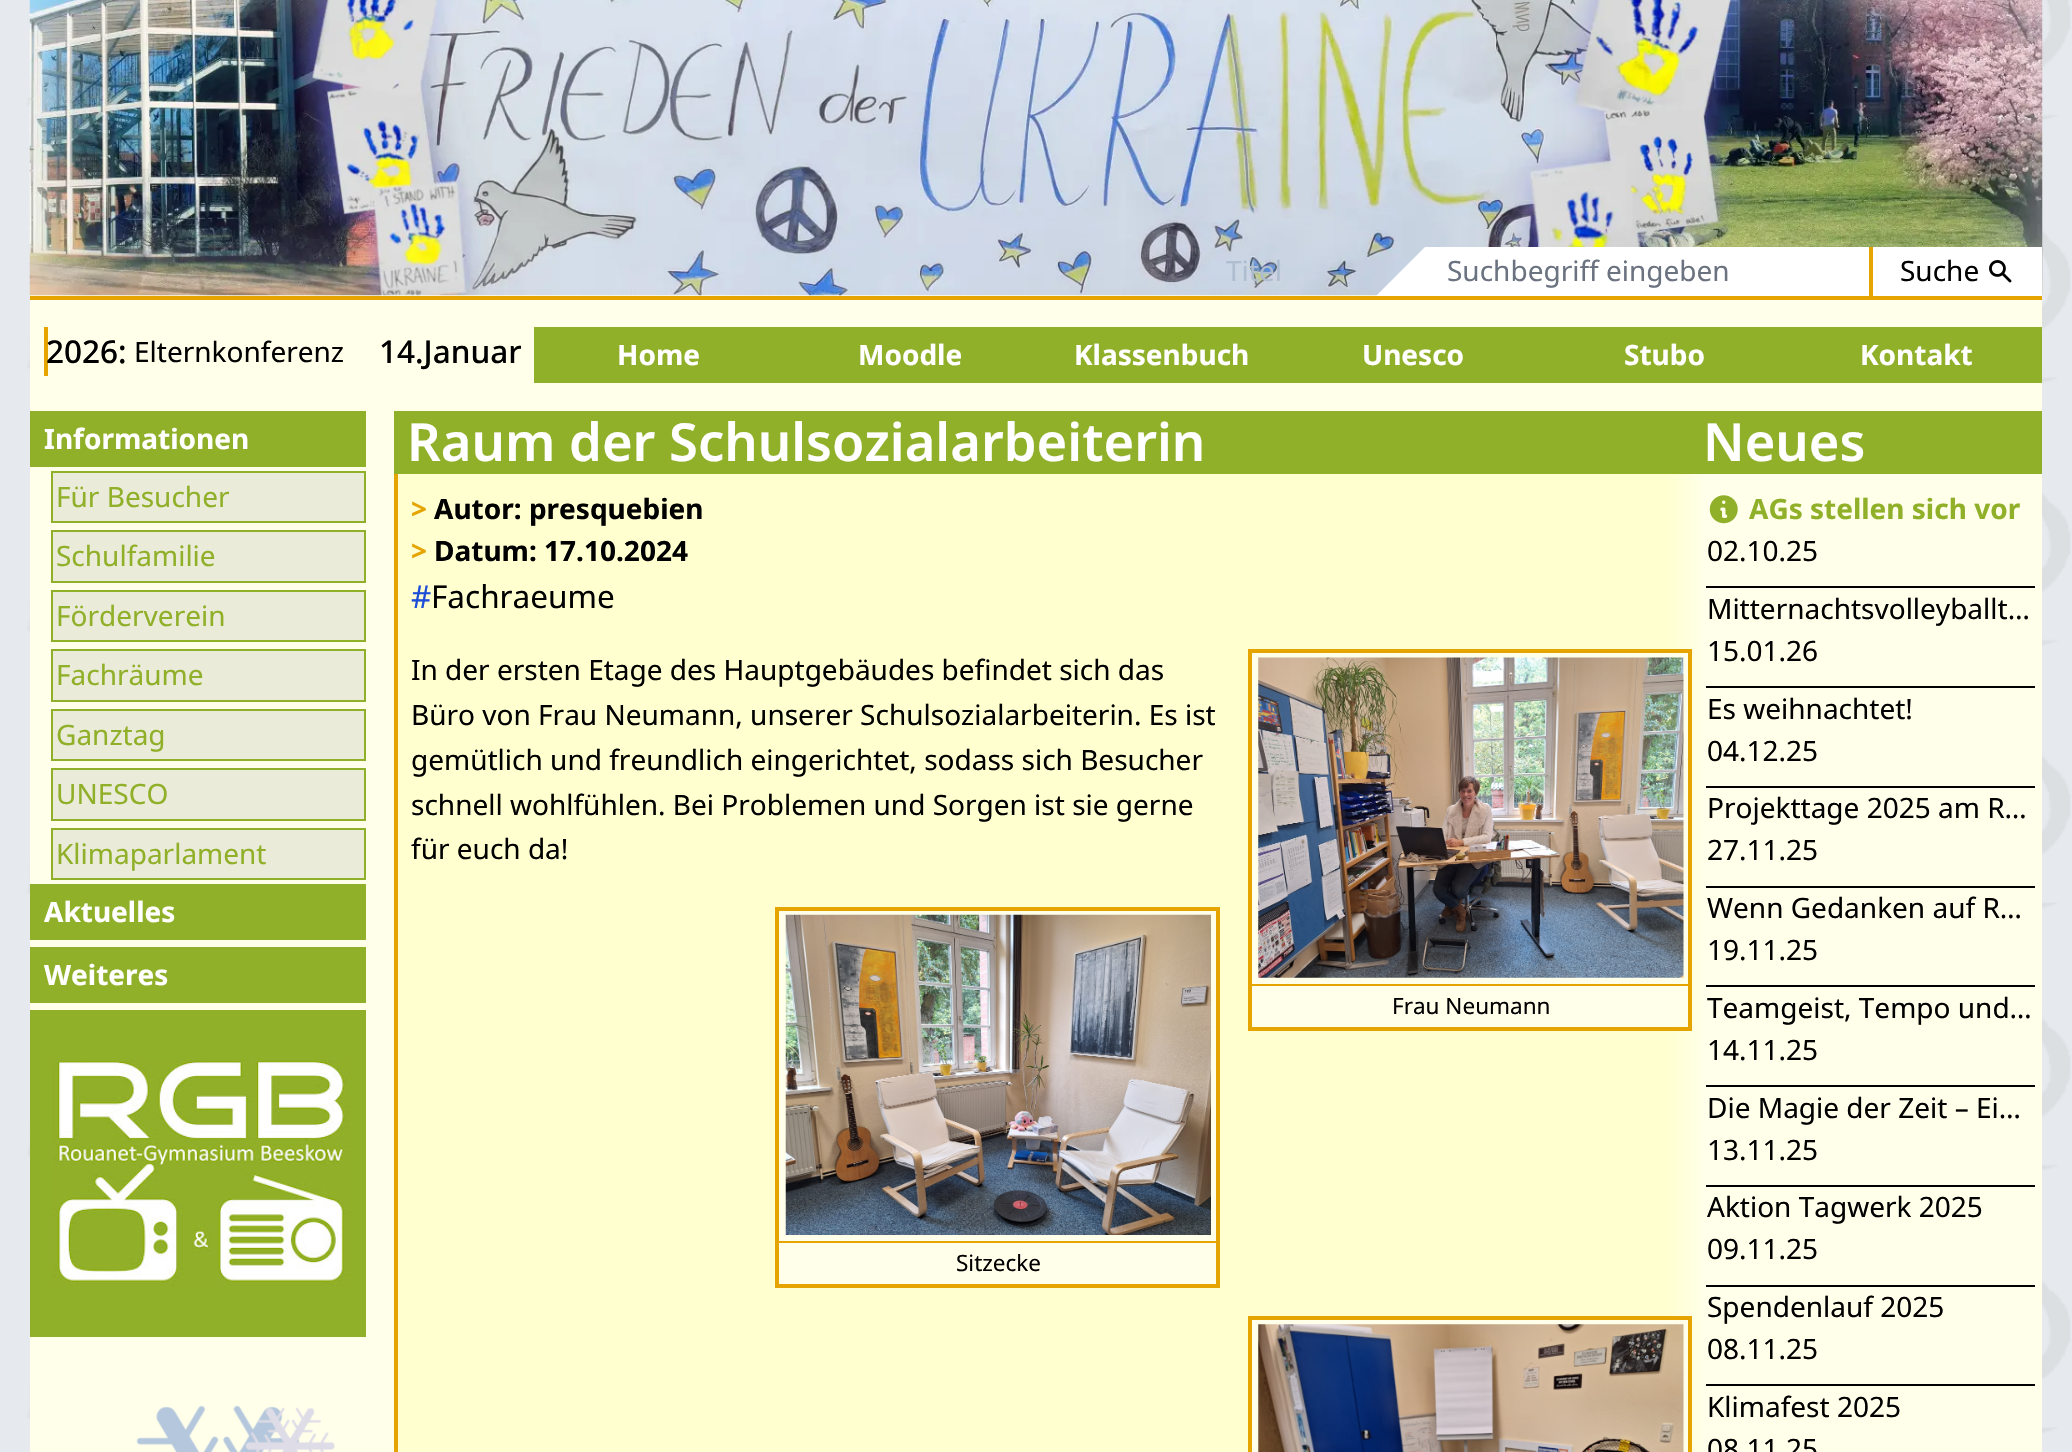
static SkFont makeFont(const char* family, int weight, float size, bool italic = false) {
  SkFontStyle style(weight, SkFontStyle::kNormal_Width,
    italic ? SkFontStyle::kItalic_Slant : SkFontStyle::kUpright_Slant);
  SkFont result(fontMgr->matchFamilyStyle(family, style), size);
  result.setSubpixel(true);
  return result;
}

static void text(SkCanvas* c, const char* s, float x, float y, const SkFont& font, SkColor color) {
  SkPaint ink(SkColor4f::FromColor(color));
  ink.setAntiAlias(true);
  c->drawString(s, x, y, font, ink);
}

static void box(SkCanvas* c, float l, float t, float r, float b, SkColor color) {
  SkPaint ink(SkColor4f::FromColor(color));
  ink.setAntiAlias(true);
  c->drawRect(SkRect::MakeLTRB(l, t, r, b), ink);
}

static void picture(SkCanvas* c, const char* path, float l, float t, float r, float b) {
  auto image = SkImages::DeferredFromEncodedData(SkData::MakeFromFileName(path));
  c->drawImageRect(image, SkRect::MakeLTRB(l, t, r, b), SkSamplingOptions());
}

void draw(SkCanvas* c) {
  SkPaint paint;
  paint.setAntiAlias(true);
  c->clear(0xffffffff);
  picture(c, "img_01.png", 0, 0, 2072, 1452);
  box(c, 30, 295, 2042, 1452, 0xffffffea);
  box(c, 30, 296, 2042, 300, 0xffe6a400);
  picture(c, "img_02.png", 29, 0, 2043, 296);
  SkFont face1 = makeFont("Noto Sans", 400, 28);
  text(c, "Titel", 1226, 281, face1, 0xffaebdcf);
  c->save();
  c->clipRect(SkRect::MakeLTRB(1349, 247, 1426, 296));
  paint.setColor(0xffffffff);
  c->drawPath(SkPathBuilder().moveTo(1371, 301).lineTo(1426, 246).lineTo(1460, 281).lineTo(1406, 335).close().detach(), paint);
  c->restore();
  box(c, 1426, 247, 1869, 296, 0xffffffff);
  text(c, "Suchbegriff eingeben", 1447, 281, face1, 0xff6b7280);
  box(c, 1873, 247, 2042, 296, 0xffffffff);
  box(c, 1869, 247, 1873, 296, 0xffe6a400);
  text(c, "Suche", 1900, 281, face1, 0xff000000);
  picture(c, "img_03.png", 1989, 260, 2012, 283);
  box(c, 44, 327, 48, 376, 0xffe6a400);
  SkFont face2 = makeFont("Noto Sans", 500, 31.5f);
  text(c, "2026:", 46, 363, face2, 0xff000000);
  text(c, "Elternkonferenz", 134, 362, face1, 0xff000000);
  text(c, "14.Januar", 379, 363, face2, 0xff000000);
  box(c, 534, 327, 2042, 383, 0xff91b029);
  SkFont face3 = makeFont("Noto Sans", 700, 28);
  text(c, "Home", 617, 365, face3, 0xffffffff);
  text(c, "Moodle", 858, 365, face3, 0xffffffff);
  text(c, "Klassenbuch", 1074, 365, face3, 0xffffffff);
  text(c, "Unesco", 1362, 365, face3, 0xffffffff);
  text(c, "Stubo", 1624, 365, face3, 0xffffffff);
  text(c, "Kontakt", 1860, 365, face3, 0xffffffff);
  box(c, 30, 411, 366, 467, 0xff91b029);
  text(c, "Informationen", 44, 449, face3, 0xffffffff);
  paint.setColor(0xffeaebd8);
  c->drawRect(SkRect::MakeLTRB(52, 472, 365, 522), paint);
  paint.setStyle(SkPaint::kStroke_Style);
  paint.setStrokeWidth(2);
  paint.setColor(0xff91b029);
  c->drawRect(SkRect::MakeLTRB(52, 472, 365, 522), paint);
  text(c, "Für Besucher", 56, 507, face1, 0xff91b029);
  paint.setStyle(SkPaint::kFill_Style);
  paint.setColor(0xffeaebd8);
  c->drawRect(SkRect::MakeLTRB(52, 531, 365, 582), paint);
  paint.setStyle(SkPaint::kStroke_Style);
  paint.setColor(0xff91b029);
  c->drawRect(SkRect::MakeLTRB(52, 531, 365, 582), paint);
  text(c, "Schulfamilie", 56, 566, face1, 0xff91b029);
  paint.setStyle(SkPaint::kFill_Style);
  paint.setColor(0xffeaebd8);
  c->drawRect(SkRect::MakeLTRB(52, 591, 365, 641), paint);
  paint.setStyle(SkPaint::kStroke_Style);
  paint.setColor(0xff91b029);
  c->drawRect(SkRect::MakeLTRB(52, 591, 365, 641), paint);
  text(c, "Förderverein", 56, 626, face1, 0xff91b029);
  paint.setStyle(SkPaint::kFill_Style);
  paint.setColor(0xffeaebd8);
  c->drawRect(SkRect::MakeLTRB(52, 650, 365, 701), paint);
  paint.setStyle(SkPaint::kStroke_Style);
  paint.setColor(0xff91b029);
  c->drawRect(SkRect::MakeLTRB(52, 650, 365, 701), paint);
  text(c, "Fachräume", 56, 685, face1, 0xff91b029);
  paint.setStyle(SkPaint::kFill_Style);
  paint.setColor(0xffeaebd8);
  c->drawRect(SkRect::MakeLTRB(52, 710, 365, 760), paint);
  paint.setStyle(SkPaint::kStroke_Style);
  paint.setColor(0xff91b029);
  c->drawRect(SkRect::MakeLTRB(52, 710, 365, 760), paint);
  text(c, "Ganztag", 56, 745, face1, 0xff91b029);
  paint.setStyle(SkPaint::kFill_Style);
  paint.setColor(0xffeaebd8);
  c->drawRect(SkRect::MakeLTRB(52, 769, 365, 820), paint);
  paint.setStyle(SkPaint::kStroke_Style);
  paint.setColor(0xff91b029);
  c->drawRect(SkRect::MakeLTRB(52, 769, 365, 820), paint);
  text(c, "UNESCO", 56, 804, face1, 0xff91b029);
  paint.setStyle(SkPaint::kFill_Style);
  paint.setColor(0xffeaebd8);
  c->drawRect(SkRect::MakeLTRB(52, 829, 365, 879), paint);
  paint.setStyle(SkPaint::kStroke_Style);
  paint.setColor(0xff91b029);
  c->drawRect(SkRect::MakeLTRB(52, 829, 365, 879), paint);
  text(c, "Klimaparlament", 56, 864, face1, 0xff91b029);
  box(c, 30, 884, 366, 940, 0xff91b029);
  text(c, "Aktuelles", 44, 922, face3, 0xffffffff);
  box(c, 30, 947, 366, 1003, 0xff91b029);
  text(c, "Weiteres", 44, 985, face3, 0xffffffff);
  box(c, 30, 1010, 366, 1337, 0xff91b029);
  picture(c, "img_04.png", 52, 1060, 350, 1286);
  picture(c, "img_05.png", 136, 1405, 335, 1452);
  paint.setStyle(SkPaint::kFill_Style);
  {
    const SkColor colors[] = {0xffffffd0, 0xffffffea};
    const float stops[] = {0.97f, 1};
    const SkPoint ends[] = {{397, 1069}, {1706, 1069}};
    paint.setShader(SkGradientShader::MakeLinear(ends, colors, stops, 2, SkTileMode::kClamp));
    paint.setAlpha(255);
  }
  c->drawRect(SkRect::MakeLTRB(398, 474, 1702, 1452), paint);
  box(c, 394, 474, 398, 1452, 0xffe6a400);
  box(c, 394, 411, 2042, 474, 0xff91b029);
  SkFont face4 = makeFont("Noto Sans", 600, 52.5f);
  text(c, "Raum der Schulsozialarbeiterin", 407, 461, face4, 0xffffffff);
  text(c, ">", 411, 519, face3, 0xffe6a400);
  text(c, "Autor: presquebien", 434, 519, face3, 0xff000000);
  text(c, ">", 411, 561, face3, 0xffe6a400);
  text(c, "Datum: 17.10.2024", 434, 561, face3, 0xff000000);
  SkFont face5 = makeFont("Noto Sans", 400, 31.5f);
  text(c, "#", 411, 608, face5, 0xff1d4ed8);
  text(c, "Fachraeume", 431, 608, face5, 0xff000000);
  text(c, "In der ersten Etage des Hauptgebäudes befindet sich das", 411, 680, face1, 0xff000000);
  text(c, "Büro von Frau Neumann, unserer Schulsozialarbeiterin. Es ist", 411, 725, face1, 0xff000000);
  text(c, "gemütlich und freundlich eingerichtet, sodass sich Besucher", 411, 770, face1, 0xff000000);
  text(c, "schnell wohlfühlen. Bei Problemen und Sorgen ist sie gerne", 411, 815, face1, 0xff000000);
  text(c, "für euch da!", 411, 859, face1, 0xff000000);
  paint.setShader(nullptr);
  paint.setColor(0xffffffea);
  c->drawRect(SkRect::MakeLTRB(1250, 651, 1690, 1029), paint);
  paint.setStyle(SkPaint::kStroke_Style);
  paint.setStrokeWidth(4);
  paint.setColor(0xffe6a400);
  c->drawRect(SkRect::MakeLTRB(1250, 651, 1690, 1029), paint);
  picture(c, "img_06.png", 1258, 657, 1684, 978);
  box(c, 1251, 984, 1689, 986, 0xffe6a400);
  SkFont face6 = makeFont("Noto Sans", 400, 22.5f);
  text(c, "Frau Neumann", 1392, 1014, face6, 0xff000000);
  paint.setStyle(SkPaint::kFill_Style);
  paint.setColor(0xffffffea);
  c->drawRect(SkRect::MakeLTRB(777, 909, 1218, 1286), paint);
  paint.setStyle(SkPaint::kStroke_Style);
  paint.setColor(0xffe6a400);
  c->drawRect(SkRect::MakeLTRB(777, 909, 1218, 1286), paint);
  picture(c, "img_07.png", 785, 914, 1211, 1235);
  box(c, 779, 1241, 1216, 1243, 0xffe6a400);
  text(c, "Sitzecke", 956, 1271, face6, 0xff000000);
  paint.setStyle(SkPaint::kFill_Style);
  paint.setColor(0xffffffea);
  c->drawRect(SkRect::MakeLTRB(1250, 1318, 1690, 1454), paint);
  paint.setStyle(SkPaint::kStroke_Style);
  paint.setColor(0xffe6a400);
  c->drawRect(SkRect::MakeLTRB(1250, 1318, 1690, 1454), paint);
  picture(c, "img_08.png", 1258, 1324, 1684, 1452);
  text(c, "Neues", 1703, 461, face4, 0xffffffff);
  picture(c, "img_09.png", 1709, 495, 1738, 524);
  text(c, "AGs stellen sich vor", 1749, 519, face3, 0xff91b029);
  text(c, "02.10.25", 1707, 561, face1, 0xff000000);
  box(c, 1706, 586, 2035, 588, 0xff000000);
  text(c, "Mitternachtsvolleyballt…", 1707, 619, face1, 0xff000000);
  text(c, "15.01.26", 1707, 661, face1, 0xff000000);
  box(c, 1706, 686, 2035, 688, 0xff000000);
  text(c, "Es weihnachtet!", 1707, 719, face1, 0xff000000);
  text(c, "04.12.25", 1707, 761, face1, 0xff000000);
  box(c, 1706, 786, 2035, 788, 0xff000000);
  text(c, "Projekttage 2025 am R…", 1707, 818, face1, 0xff000000);
  text(c, "27.11.25", 1707, 860, face1, 0xff000000);
  box(c, 1706, 886, 2035, 888, 0xff000000);
  text(c, "Wenn Gedanken auf R…", 1707, 918, face1, 0xff000000);
  text(c, "19.11.25", 1707, 960, face1, 0xff000000);
  box(c, 1706, 985, 2035, 987, 0xff000000);
  text(c, "Teamgeist, Tempo und…", 1707, 1018, face1, 0xff000000);
  text(c, "14.11.25", 1707, 1060, face1, 0xff000000);
  box(c, 1706, 1085, 2035, 1087, 0xff000000);
  text(c, "Die Magie der Zeit – Ei…", 1707, 1118, face1, 0xff000000);
  text(c, "13.11.25", 1707, 1160, face1, 0xff000000);
  box(c, 1706, 1185, 2035, 1187, 0xff000000);
  text(c, "Aktion Tagwerk 2025", 1707, 1217, face1, 0xff000000);
  text(c, "09.11.25", 1707, 1259, face1, 0xff000000);
  box(c, 1706, 1285, 2035, 1287, 0xff000000);
  text(c, "Spendenlauf 2025", 1707, 1317, face1, 0xff000000);
  text(c, "08.11.25", 1707, 1359, face1, 0xff000000);
  box(c, 1706, 1384, 2035, 1386, 0xff000000);
  text(c, "Klimafest 2025", 1707, 1417, face1, 0xff000000);
  text(c, "08.11.25", 1707, 1459, face1, 0xff000000);
}
